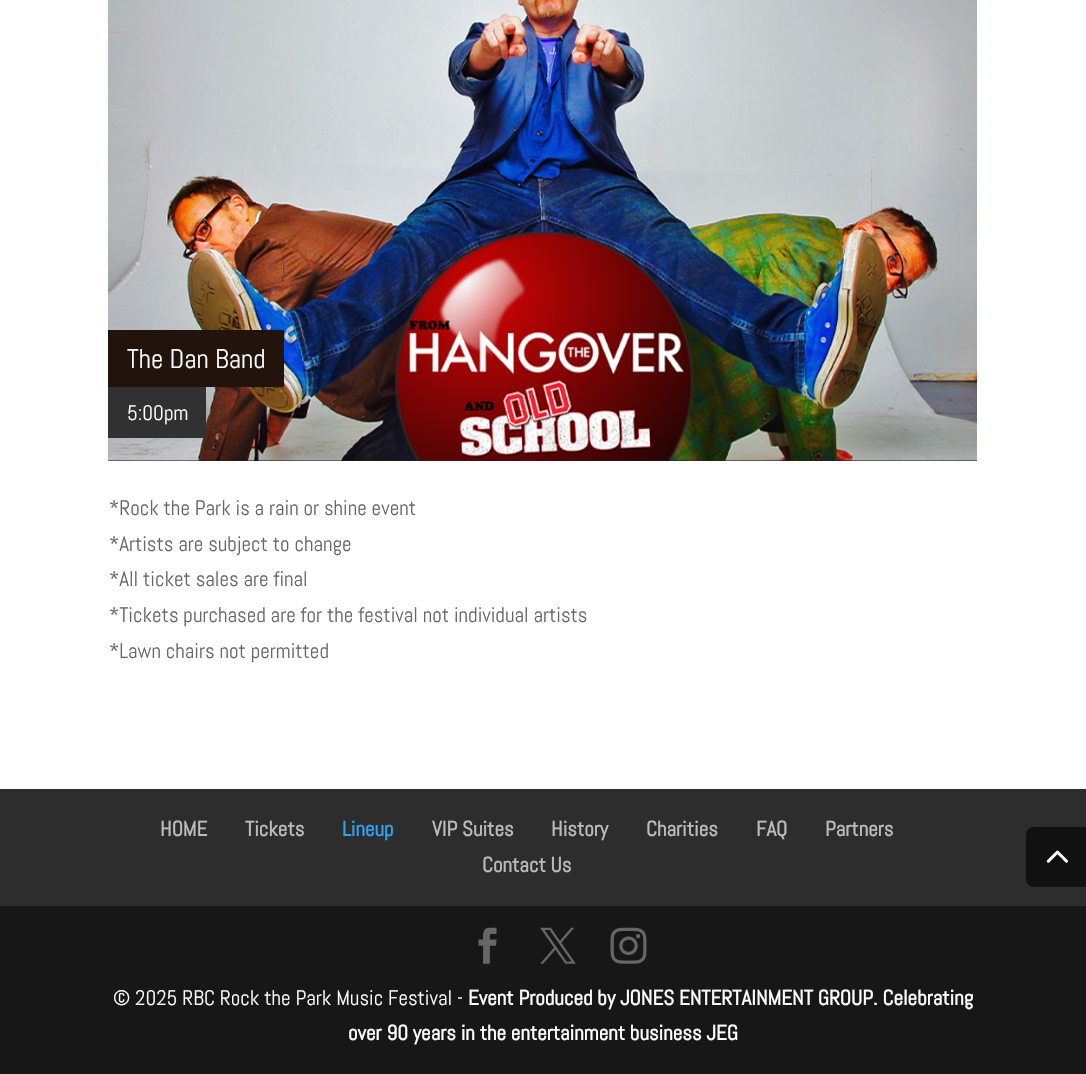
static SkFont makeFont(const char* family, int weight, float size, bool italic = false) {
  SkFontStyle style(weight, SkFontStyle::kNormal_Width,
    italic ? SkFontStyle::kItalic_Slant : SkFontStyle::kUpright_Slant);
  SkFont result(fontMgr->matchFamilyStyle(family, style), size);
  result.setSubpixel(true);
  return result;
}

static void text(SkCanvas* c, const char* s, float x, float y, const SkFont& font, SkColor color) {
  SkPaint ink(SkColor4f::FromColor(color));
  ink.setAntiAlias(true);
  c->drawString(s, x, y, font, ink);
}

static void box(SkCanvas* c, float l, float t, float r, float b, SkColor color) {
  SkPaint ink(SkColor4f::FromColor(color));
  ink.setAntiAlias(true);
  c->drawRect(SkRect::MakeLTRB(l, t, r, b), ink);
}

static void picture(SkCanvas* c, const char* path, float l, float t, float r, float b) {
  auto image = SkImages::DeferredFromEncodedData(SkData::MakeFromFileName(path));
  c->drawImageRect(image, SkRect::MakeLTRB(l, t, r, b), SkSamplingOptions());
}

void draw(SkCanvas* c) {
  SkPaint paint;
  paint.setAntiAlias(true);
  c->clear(0xff2d2d2d);
  box(c, 0, 0, 1086, 789, 0xffffffff);
  box(c, 108, 460, 977, 461, 0xff212121);
  picture(c, "img_01.png", 108, 0, 977, 461);
  box(c, 108, 330, 284, 387, 0xff23130d);
  SkFont face1 = makeFont("Abel", 400, 27);
  text(c, "The Dan Band", 127, 368, face1, 0xffffffff);
  box(c, 108, 387, 206, 438, 0xff313131);
  SkFont face2 = makeFont("Abel", 400, 21);
  text(c, "5:00pm", 127, 420, face2, 0xffffffff);
  text(c, "*Rock the Park is a rain or shine event", 109, 515, face2, 0xff666666);
  text(c, "*Artists are subject to change", 109, 551, face2, 0xff666666);
  text(c, "*All ticket sales are final", 109, 586, face2, 0xff666666);
  text(c, "*Tickets purchased are for the festival not individual artists", 109, 622, face2, 0xff666666);
  text(c, "*Lawn chairs not permitted", 109, 658, face2, 0xff666666);
  SkFont face3 = makeFont("Abel", 700, 21);
  text(c, "HOME", 160, 836, face3, 0xffbbbbbb);
  text(c, "Tickets", 245, 836, face3, 0xffbbbbbb);
  text(c, "Lineup", 342, 836, face3, 0xff2ea3f2);
  text(c, "VIP Suites", 432, 836, face3, 0xffbbbbbb);
  text(c, "History", 551, 836, face3, 0xffbbbbbb);
  text(c, "Charities", 646, 836, face3, 0xffbbbbbb);
  text(c, "FAQ", 756, 836, face3, 0xffbbbbbb);
  text(c, "Partners", 825, 836, face3, 0xffbbbbbb);
  text(c, "Contact Us", 482, 872, face3, 0xffbbbbbb);
  box(c, 0, 906, 1086, 1074, 0xff171717);
  picture(c, "img_02.png", 478, 927, 497, 964);
  picture(c, "img_03.png", 540, 927, 576, 964);
  picture(c, "img_04.png", 610, 927, 647, 964);
  text(c, "© 2025 RBC Rock the Park Music Festival -", 113, 1005, face2, 0xffffffff);
  text(c, "Event Produced by JONES ENTERTAINMENT GROUP. Celebrating", 468, 1005, face3, 0xffffffff);
  text(c, "over 90 years in the entertainment business JEG", 348, 1040, face3, 0xffffffff);
  paint.setColor(0xff1b1b1b);
  c->drawPath(SkPathBuilder().moveTo(1034, 827).lineTo(1086, 827).lineTo(1086, 887).lineTo(1034, 887).cubicTo(1029.5f, 887, 1026, 883.5f, 1026, 879).lineTo(1026, 835).cubicTo(1026, 830.5f, 1029.5f, 827, 1034, 827).close().detach(), paint);
  picture(c, "img_05.png", 1046, 850, 1068, 863);
  paint.setColor(0x66000000);
  c->drawPath(SkPathBuilder().moveTo(1034, 827).lineTo(1086, 827).lineTo(1086, 887).lineTo(1034, 887).cubicTo(1029.5f, 887, 1026, 883.5f, 1026, 879).lineTo(1026, 835).cubicTo(1026, 830.5f, 1029.5f, 827, 1034, 827).close().detach(), paint);
  picture(c, "img_06.png", 1046, 850, 1068, 863);
}
